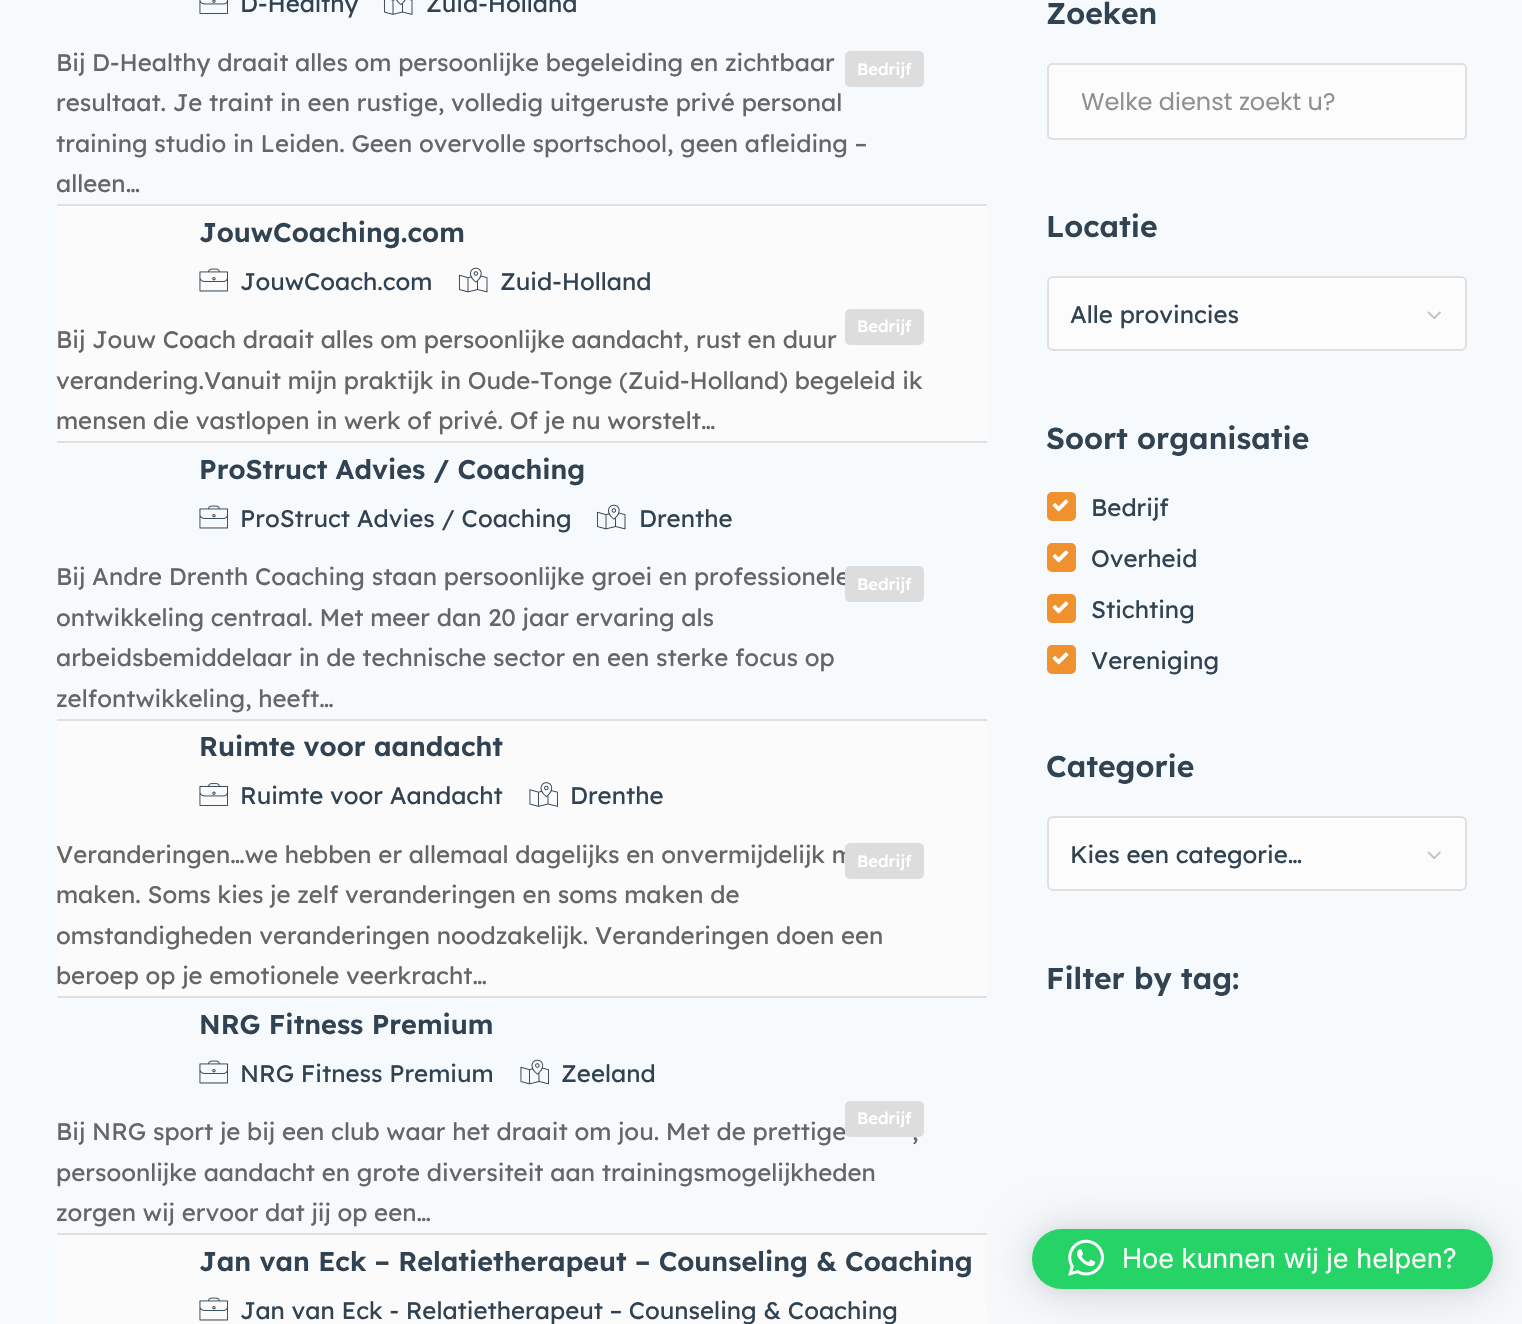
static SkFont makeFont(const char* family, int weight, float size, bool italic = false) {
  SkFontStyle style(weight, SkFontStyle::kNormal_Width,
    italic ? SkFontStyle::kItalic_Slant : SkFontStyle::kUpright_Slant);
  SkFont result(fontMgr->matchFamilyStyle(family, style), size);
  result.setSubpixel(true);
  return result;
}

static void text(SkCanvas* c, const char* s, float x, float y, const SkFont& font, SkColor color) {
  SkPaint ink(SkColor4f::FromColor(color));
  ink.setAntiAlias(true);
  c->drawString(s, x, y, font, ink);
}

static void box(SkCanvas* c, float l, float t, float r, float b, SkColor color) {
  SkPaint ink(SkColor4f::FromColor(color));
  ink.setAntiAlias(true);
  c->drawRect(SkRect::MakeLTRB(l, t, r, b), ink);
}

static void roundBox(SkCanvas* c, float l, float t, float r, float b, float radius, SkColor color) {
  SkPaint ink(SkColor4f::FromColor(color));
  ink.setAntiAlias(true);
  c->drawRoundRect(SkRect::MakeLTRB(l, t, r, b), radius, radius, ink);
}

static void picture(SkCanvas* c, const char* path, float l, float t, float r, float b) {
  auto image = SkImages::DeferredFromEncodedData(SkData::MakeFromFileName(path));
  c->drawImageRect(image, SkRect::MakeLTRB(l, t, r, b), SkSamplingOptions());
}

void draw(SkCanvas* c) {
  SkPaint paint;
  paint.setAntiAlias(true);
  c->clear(0xfff7fafd);
  picture(c, "img_01.png", 199, 0, 228, 14);
  SkFont face1 = makeFont("Lexend Deca", 400, 24);
  text(c, "D-Healthy", 240, 12, face1, 0xff314352);
  picture(c, "img_02.png", 383, 0, 413, 15);
  text(c, "Zuid-Holland", 426, 12, face1, 0xff314352);
  text(c, "Bij D-Healthy draait alles om persoonlijke begeleiding en zichtbaar", 56, 71, face1, 0xff666666);
  text(c, "resultaat. Je traint in een rustige, volledig uitgeruste privé personal", 56, 111, face1, 0xff666666);
  text(c, "training studio in Leiden. Geen overvolle sportschool, geen afleiding –", 56, 152, face1, 0xff666666);
  text(c, "alleen…", 56, 192, face1, 0xff666666);
  roundBox(c, 845, 51, 924, 87, 5, 0xffdddddd);
  SkFont face2 = makeFont("Lexend Deca", 500, 16.5f);
  text(c, "Bedrijf", 857, 75, face2, 0xffffffff);
  box(c, 57, 206, 987, 441, 0xfffbfbfb);
  box(c, 57, 204, 987, 206, 0xffe0e0e0);
  SkFont face3 = makeFont("Lexend Deca", 600, 27);
  text(c, "JouwCoaching.com", 199, 242, face3, 0xff314352);
  roundBox(c, 845, 309, 924, 345, 5, 0xffdddddd);
  text(c, "Bedrijf", 857, 332, face2, 0xffffffff);
  picture(c, "img_03.png", 199, 268, 228, 292);
  text(c, "JouwCoach.com", 240, 290, face1, 0xff314352);
  picture(c, "img_04.png", 458, 267, 488, 293);
  text(c, "Zuid-Holland", 500, 290, face1, 0xff314352);
  text(c, "Bij Jouw Coach draait alles om persoonlijke aandacht, rust en duur", 56, 348, face1, 0xff666666);
  text(c, "verandering.Vanuit mijn praktijk in Oude-Tonge (Zuid-Holland) begeleid ik", 56, 389, face1, 0xff666666);
  text(c, "mensen die vastlopen in werk of privé. Of je nu worstelt…", 56, 429, face1, 0xff666666);
  box(c, 57, 441, 987, 443, 0xffe0e0e0);
  text(c, "ProStruct Advies / Coaching", 199, 479, face3, 0xff314352);
  text(c, "Bij Andre Drenth Coaching staan persoonlijke groei en professionele", 56, 585, face1, 0xff666666);
  roundBox(c, 845, 566, 924, 602, 5, 0xffdddddd);
  text(c, "Bedrijf", 857, 590, face2, 0xffffffff);
  picture(c, "img_05.png", 199, 505, 228, 529);
  text(c, "ProStruct Advies / Coaching", 240, 527, face1, 0xff314352);
  picture(c, "img_06.png", 596, 504, 626, 530);
  text(c, "Drenthe", 639, 527, face1, 0xff314352);
  text(c, "ontwikkeling centraal. Met meer dan 20 jaar ervaring als", 56, 626, face1, 0xff666666);
  text(c, "arbeidsbemiddelaar in de technische sector en een sterke focus op", 56, 666, face1, 0xff666666);
  text(c, "zelfontwikkeling, heeft…", 56, 707, face1, 0xff666666);
  box(c, 57, 721, 987, 996, 0xfffbfbfb);
  box(c, 57, 719, 987, 721, 0xffe0e0e0);
  text(c, "Ruimte voor aandacht", 199, 756, face3, 0xff314352);
  text(c, "Veranderingen…we hebben er allemaal dagelijks en onvermijdelijk m", 56, 863, face1, 0xff666666);
  roundBox(c, 845, 843, 924, 879, 5, 0xffdddddd);
  text(c, "Bedrijf", 857, 867, face2, 0xffffffff);
  picture(c, "img_07.png", 199, 783, 228, 806);
  text(c, "Ruimte voor Aandacht", 240, 804, face1, 0xff314352);
  picture(c, "img_08.png", 529, 782, 558, 807);
  text(c, "Drenthe", 570, 804, face1, 0xff314352);
  text(c, "maken. Soms kies je zelf veranderingen en soms maken de", 56, 903, face1, 0xff666666);
  text(c, "omstandigheden veranderingen noodzakelijk. Veranderingen doen een", 56, 944, face1, 0xff666666);
  text(c, "beroep op je emotionele veerkracht…", 56, 984, face1, 0xff666666);
  box(c, 57, 996, 987, 998, 0xffe0e0e0);
  text(c, "NRG Fitness Premium", 199, 1034, face3, 0xff314352);
  text(c, "Bij NRG sport je bij een club waar het draait om jou. Met de prettige", 56, 1140, face1, 0xff666666);
  roundBox(c, 845, 1101, 924, 1137, 5, 0xffdddddd);
  text(c, "Bedrijf", 857, 1124, face2, 0xffffffff);
  picture(c, "img_05.png", 199, 1060, 228, 1084);
  text(c, "NRG Fitness Premium", 240, 1082, face1, 0xff314352);
  picture(c, "img_09.png", 520, 1059, 549, 1085);
  text(c, "Zeeland", 561, 1082, face1, 0xff314352);
  text(c, ",", 912, 1140, face1, 0xff666666);
  text(c, "persoonlijke aandacht en grote diversiteit aan trainingsmogelijkheden", 56, 1181, face1, 0xff666666);
  text(c, "zorgen wij ervoor dat jij op een…", 56, 1221, face1, 0xff666666);
  box(c, 57, 1235, 987, 1324, 0xfffbfbfb);
  box(c, 57, 1233, 987, 1235, 0xffe0e0e0);
  text(c, "Jan van Eck – Relatietherapeut – Counseling & Coaching", 199, 1271, face3, 0xff314352);
  picture(c, "img_03.png", 199, 1297, 228, 1321);
  text(c, "Jan van Eck - Relatietherapeut – Counseling & Coaching", 240, 1319, face1, 0xff314352);
  SkFont face4 = makeFont("Lexend Deca", 600, 30);
  text(c, "Zoeken", 1046, 24, face4, 0xff314352);
  paint.setColor(0xfffcfcfc);
  c->drawRoundRect(SkRect::MakeLTRB(1048, 64, 1466, 139), 4, 4, paint);
  paint.setStyle(SkPaint::kStroke_Style);
  paint.setStrokeWidth(2);
  paint.setColor(0xffe0e0e0);
  c->drawRoundRect(SkRect::MakeLTRB(1048, 64, 1466, 139), 4, 4, paint);
  c->save();
  c->clipRect(SkRect::MakeLTRB(1082, 83, 1433, 120));
  SkFont face5 = makeFont("Poppins", 400, 24);
  text(c, "Welke dienst zoekt u?", 1081, 110, face5, 0xff909090);
  c->restore();
  text(c, "Locatie", 1046, 237, face4, 0xff314352);
  paint.setStyle(SkPaint::kFill_Style);
  paint.setColor(0xfffcfcfc);
  c->drawRoundRect(SkRect::MakeLTRB(1048, 277, 1466, 350), 5, 5, paint);
  paint.setStyle(SkPaint::kStroke_Style);
  paint.setColor(0xffe0e0e0);
  c->drawRoundRect(SkRect::MakeLTRB(1048, 277, 1466, 350), 5, 5, paint);
  text(c, "Alle provincies", 1070, 323, face1, 0xff314352);
  picture(c, "img_10.png", 1427, 311, 1441, 320);
  text(c, "Soort organisatie", 1046, 449, face4, 0xff314352);
  roundBox(c, 1047, 492, 1076, 521, 5, 0xfff09130);
  picture(c, "img_11.png", 1052, 499, 1069, 512);
  text(c, "Bedrijf", 1091, 516, face1, 0xff314352);
  roundBox(c, 1047, 543, 1076, 572, 5, 0xfff09130);
  picture(c, "img_11.png", 1052, 550, 1069, 563);
  text(c, "Overheid", 1091, 567, face1, 0xff314352);
  roundBox(c, 1047, 594, 1076, 623, 5, 0xfff09130);
  picture(c, "img_11.png", 1052, 601, 1069, 614);
  text(c, "Stichting", 1091, 618, face1, 0xff314352);
  roundBox(c, 1047, 645, 1076, 674, 5, 0xfff09130);
  picture(c, "img_11.png", 1052, 652, 1069, 665);
  text(c, "Vereniging", 1091, 669, face1, 0xff314352);
  text(c, "Categorie", 1046, 777, face4, 0xff314352);
  paint.setStyle(SkPaint::kFill_Style);
  paint.setColor(0xfffcfcfc);
  c->drawRoundRect(SkRect::MakeLTRB(1048, 817, 1466, 890), 5, 5, paint);
  paint.setStyle(SkPaint::kStroke_Style);
  paint.setColor(0xffe0e0e0);
  c->drawRoundRect(SkRect::MakeLTRB(1048, 817, 1466, 890), 5, 5, paint);
  text(c, "Kies een categorie…", 1070, 863, face1, 0xff314352);
  picture(c, "img_10.png", 1427, 851, 1441, 860);
  text(c, "Filter by tag:", 1046, 989, face4, 0xff314352);
  paint.setStyle(SkPaint::kFill_Style);
  paint.setColor(0x29000000);
  paint.setMaskFilter(SkMaskFilter::MakeBlur(kNormal_SkBlurStyle, 24));
  c->drawRoundRect(SkRect::MakeLTRB(1032, 1232, 1493, 1292), 30, 30, paint);
  paint.setMaskFilter(nullptr);
  paint.setColor(0x0f000000);
  paint.setMaskFilter(SkMaskFilter::MakeBlur(kNormal_SkBlurStyle, 4.5f));
  c->drawRoundRect(SkRect::MakeLTRB(1032, 1230, 1493, 1290), 30, 30, paint);
  paint.setMaskFilter(nullptr);
  roundBox(c, 1032, 1229, 1493, 1289, 30, 0xff25d366);
  picture(c, "img_12.png", 1068, 1239, 1104, 1276);
  SkFont face6 = makeFont("Inter", 400, 27);
  text(c, "Hoe kunnen wij je helpen?", 1122, 1268, face6, 0xffffffff);
}
